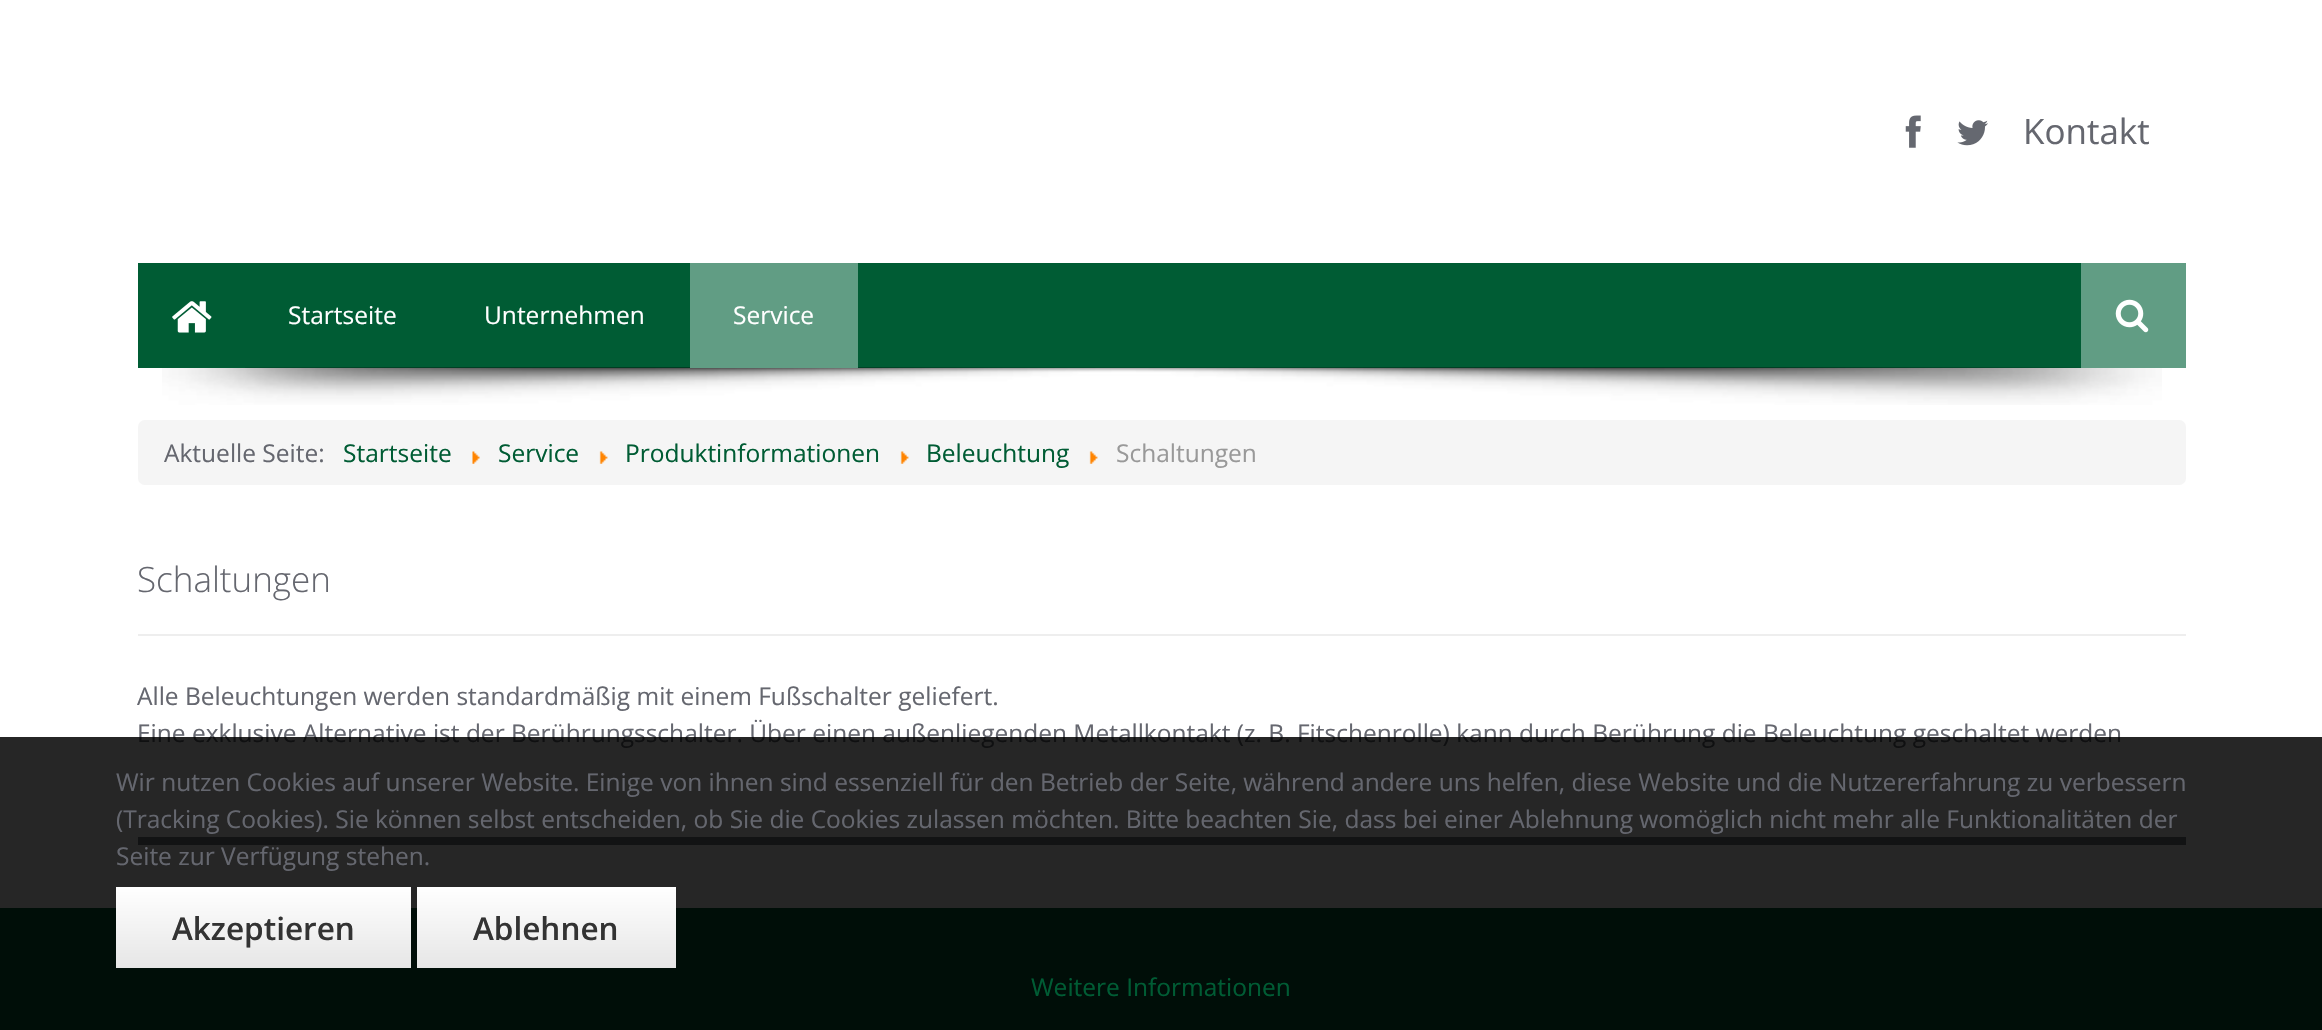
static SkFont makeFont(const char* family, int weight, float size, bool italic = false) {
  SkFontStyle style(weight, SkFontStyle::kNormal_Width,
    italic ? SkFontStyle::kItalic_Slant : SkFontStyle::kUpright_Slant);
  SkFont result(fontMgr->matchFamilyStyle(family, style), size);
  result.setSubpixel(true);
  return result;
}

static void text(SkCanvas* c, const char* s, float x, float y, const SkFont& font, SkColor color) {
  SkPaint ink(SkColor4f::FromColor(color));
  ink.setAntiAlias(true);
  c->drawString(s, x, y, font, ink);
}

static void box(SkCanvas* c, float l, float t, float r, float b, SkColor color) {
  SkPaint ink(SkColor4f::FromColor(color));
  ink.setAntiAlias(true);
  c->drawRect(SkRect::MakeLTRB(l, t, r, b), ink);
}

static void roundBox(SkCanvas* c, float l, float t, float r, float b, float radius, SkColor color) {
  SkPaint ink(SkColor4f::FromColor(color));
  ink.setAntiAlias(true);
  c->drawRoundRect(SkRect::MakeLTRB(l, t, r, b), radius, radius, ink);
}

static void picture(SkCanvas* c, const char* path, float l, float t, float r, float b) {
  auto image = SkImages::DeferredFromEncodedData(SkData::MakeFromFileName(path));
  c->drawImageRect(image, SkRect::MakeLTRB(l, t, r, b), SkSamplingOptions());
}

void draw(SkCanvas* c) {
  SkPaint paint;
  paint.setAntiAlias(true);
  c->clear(0xffffffff);
  picture(c, "img_01.png", 1905, 115, 1921, 148);
  picture(c, "img_02.png", 1957, 120, 1988, 146);
  SkFont face1 = makeFont("Open Sans", 400, 35);
  text(c, "Kontakt", 2023, 144, face1, 0xff65676f);
  box(c, 245, 263, 2081, 368, 0xff005c34);
  picture(c, "img_05.png", 162, 367, 2162, 405);
  box(c, 138, 263, 245, 368, 0xff005c34);
  picture(c, "img_03.png", 172, 301, 212, 333);
  SkFont face2 = makeFont("Open Sans", 400, 24.5f);
  text(c, "Startseite", 288, 324, face2, 0xffffffff);
  text(c, "Unternehmen", 484, 324, face2, 0xffffffff);
  box(c, 690, 263, 858, 368, 0xff619d84);
  text(c, "Service", 733, 324, face2, 0xffffffff);
  box(c, 2081, 263, 2186, 368, 0xff619d84);
  picture(c, "img_04.png", 2115, 299, 2149, 333);
  roundBox(c, 138, 420, 2186, 485, 7, 0xfff5f5f5);
  text(c, "Aktuelle Seite:", 164, 462, face2, 0xff65676f);
  text(c, "Startseite", 343, 462, face2, 0xff005c34);
  picture(c, "img_06.png", 472, 451, 480, 464);
  text(c, "Service", 498, 462, face2, 0xff005c34);
  picture(c, "img_07.png", 599, 451, 608, 464);
  text(c, "Produktinformationen", 625, 462, face2, 0xff005c34);
  picture(c, "img_08.png", 900, 451, 909, 464);
  text(c, "Beleuchtung", 926, 462, face2, 0xff005c34);
  picture(c, "img_08.png", 1089, 451, 1098, 464);
  text(c, "Schaltungen", 1116, 462, face2, 0xff999999);
  box(c, 138, 634, 2186, 636, 0xffeeeeee);
  SkFont face3 = makeFont("Open Sans", 300, 35);
  text(c, "Schaltungen", 137, 592, face3, 0xff65676f);
  text(c, "Alle Beleuchtungen werden standardmäßig mit einem Fußschalter geliefert.", 137, 705, face2, 0xff65676f);
  text(c, "Eine exklusive Alternative ist der Berührungsschalter. Über einen außenliegenden Metallkontakt (z. B. Fitschenrolle) kann durch Berührung die Beleuchtung geschaltet werden", 137, 742, face2, 0xff65676f);
  box(c, 138, 837, 2186, 845, 0xff787b84);
  box(c, 0, 908, 2322, 1030, 0xff005c34);
  box(c, 0, 737, 2322, 1030, 0xd9000000);
  text(c, "Wir nutzen Cookies auf unserer Website. Einige von ihnen sind essenziell für den Betrieb der Seite, während andere uns helfen, diese Website und die Nutzererfahrung zu verbessern", 116, 791, face2, 0xff65676f);
  text(c, "(Tracking Cookies). Sie können selbst entscheiden, ob Sie die Cookies zulassen möchten. Bitte beachten Sie, dass bei einer Ablehnung womöglich nicht mehr alle Funktionalitäten der", 116, 828, face2, 0xff65676f);
  text(c, "Seite zur Verfügung stehen.", 116, 865, face2, 0xff65676f);
  {
    const SkColor colors[] = {0xffffffff, 0xffe6e6e6};
    const float stops[] = {0, 1};
    const SkPoint ends[] = {{263, 887}, {263, 968}};
    paint.setShader(SkGradientShader::MakeLinear(ends, colors, stops, 2, SkTileMode::kClamp));
    paint.setAlpha(255);
  }
  c->drawRect(SkRect::MakeLTRB(116, 887, 411, 968), paint);
  SkFont face4 = makeFont("Open Sans", 600, 31.5f);
  text(c, "Akzeptieren", 172, 940, face4, 0xff333333);
  {
    const SkColor colors[] = {0xffffffff, 0xffe6e6e6};
    const float stops[] = {0, 1};
    const SkPoint ends[] = {{546, 887}, {546, 968}};
    paint.setShader(SkGradientShader::MakeLinear(ends, colors, stops, 2, SkTileMode::kClamp));
    paint.setAlpha(255);
  }
  c->drawRect(SkRect::MakeLTRB(417, 887, 676, 968), paint);
  text(c, "Ablehnen", 473, 940, face4, 0xff333333);
  text(c, "Weitere Informationen", 1031, 996, face2, 0xff005c34);
}
